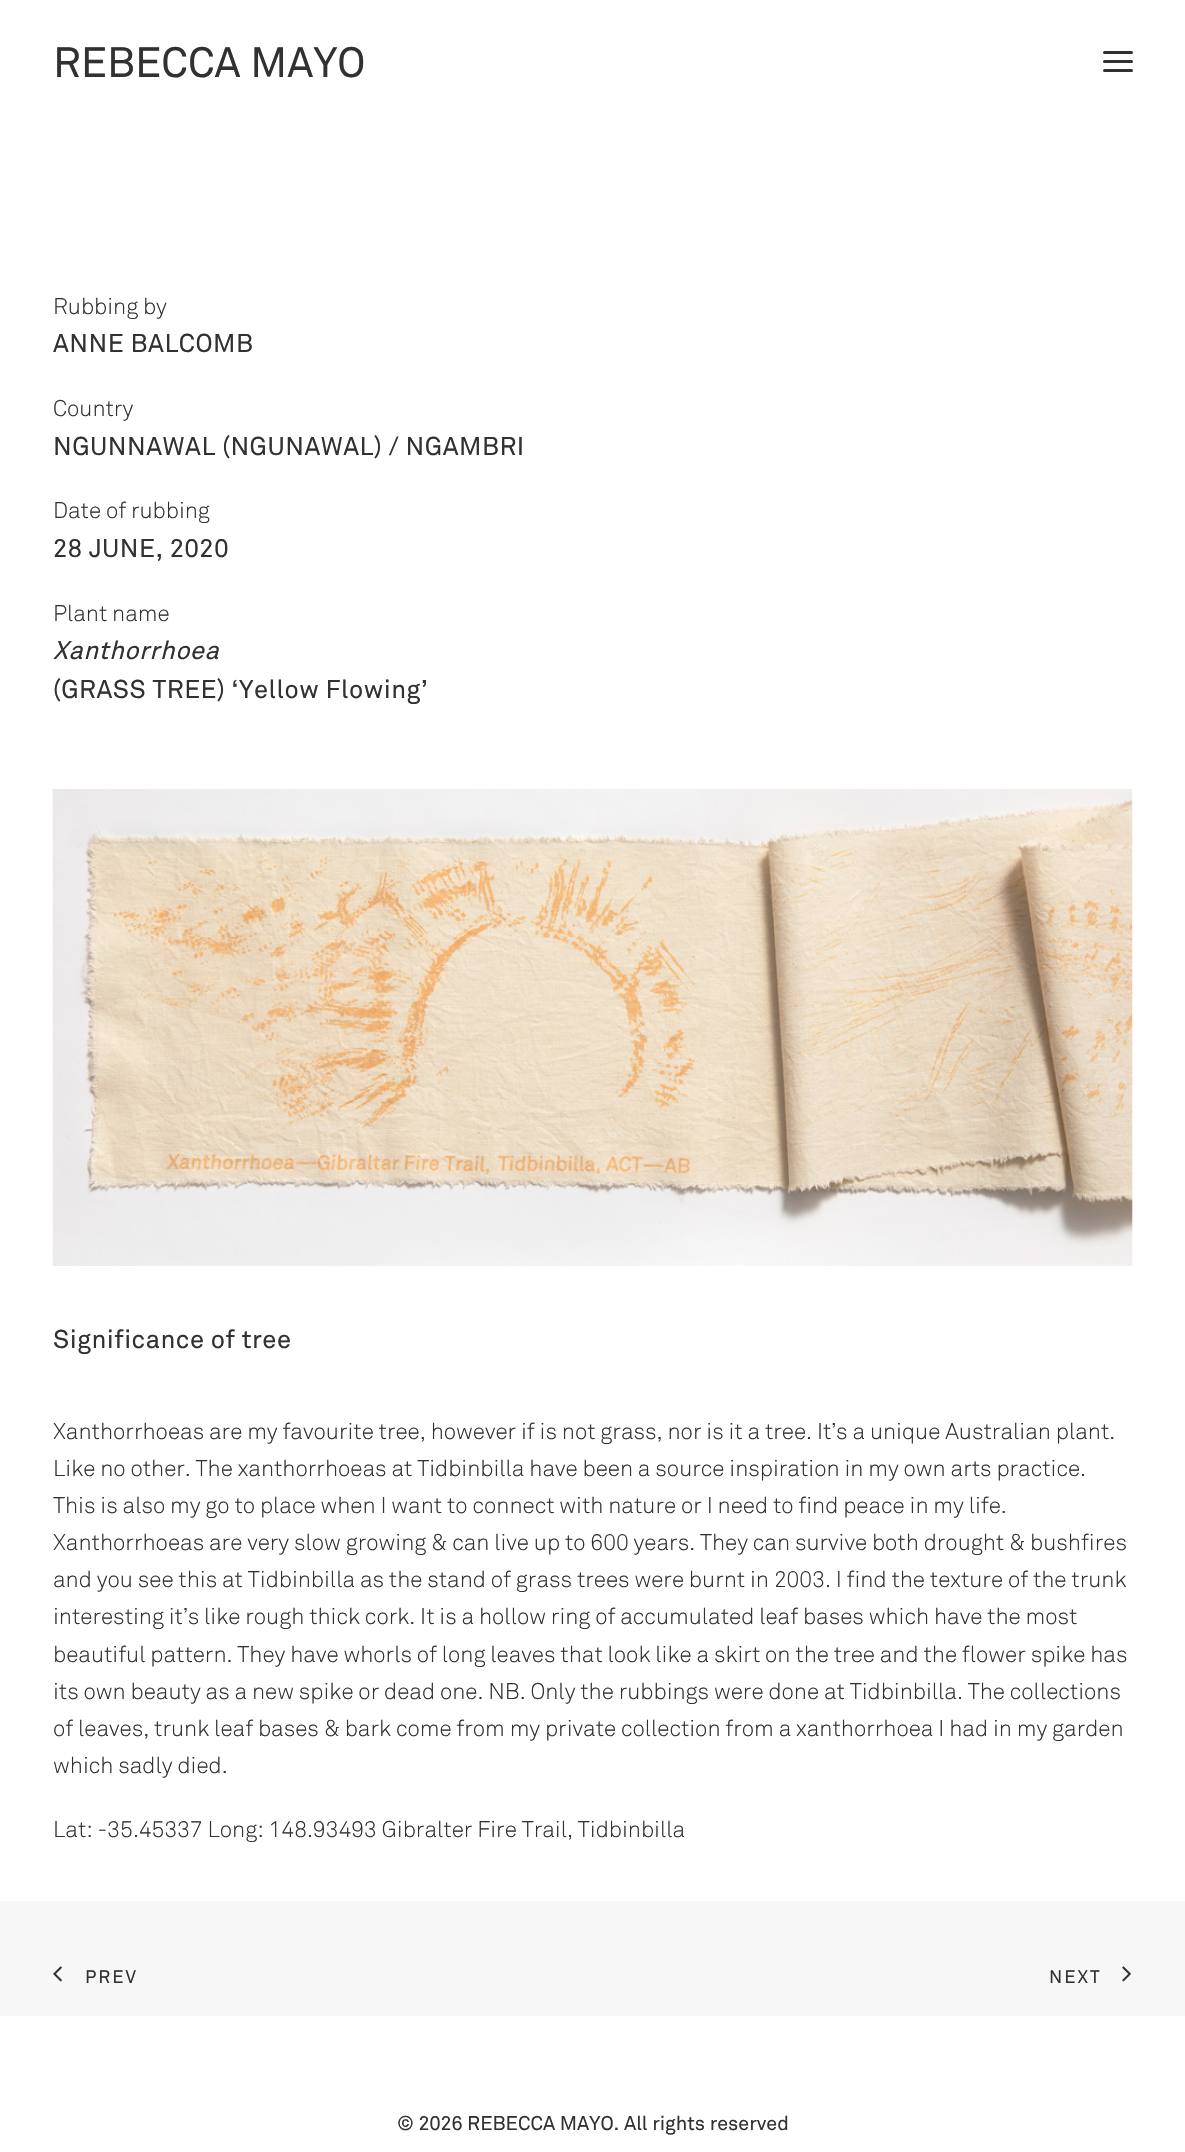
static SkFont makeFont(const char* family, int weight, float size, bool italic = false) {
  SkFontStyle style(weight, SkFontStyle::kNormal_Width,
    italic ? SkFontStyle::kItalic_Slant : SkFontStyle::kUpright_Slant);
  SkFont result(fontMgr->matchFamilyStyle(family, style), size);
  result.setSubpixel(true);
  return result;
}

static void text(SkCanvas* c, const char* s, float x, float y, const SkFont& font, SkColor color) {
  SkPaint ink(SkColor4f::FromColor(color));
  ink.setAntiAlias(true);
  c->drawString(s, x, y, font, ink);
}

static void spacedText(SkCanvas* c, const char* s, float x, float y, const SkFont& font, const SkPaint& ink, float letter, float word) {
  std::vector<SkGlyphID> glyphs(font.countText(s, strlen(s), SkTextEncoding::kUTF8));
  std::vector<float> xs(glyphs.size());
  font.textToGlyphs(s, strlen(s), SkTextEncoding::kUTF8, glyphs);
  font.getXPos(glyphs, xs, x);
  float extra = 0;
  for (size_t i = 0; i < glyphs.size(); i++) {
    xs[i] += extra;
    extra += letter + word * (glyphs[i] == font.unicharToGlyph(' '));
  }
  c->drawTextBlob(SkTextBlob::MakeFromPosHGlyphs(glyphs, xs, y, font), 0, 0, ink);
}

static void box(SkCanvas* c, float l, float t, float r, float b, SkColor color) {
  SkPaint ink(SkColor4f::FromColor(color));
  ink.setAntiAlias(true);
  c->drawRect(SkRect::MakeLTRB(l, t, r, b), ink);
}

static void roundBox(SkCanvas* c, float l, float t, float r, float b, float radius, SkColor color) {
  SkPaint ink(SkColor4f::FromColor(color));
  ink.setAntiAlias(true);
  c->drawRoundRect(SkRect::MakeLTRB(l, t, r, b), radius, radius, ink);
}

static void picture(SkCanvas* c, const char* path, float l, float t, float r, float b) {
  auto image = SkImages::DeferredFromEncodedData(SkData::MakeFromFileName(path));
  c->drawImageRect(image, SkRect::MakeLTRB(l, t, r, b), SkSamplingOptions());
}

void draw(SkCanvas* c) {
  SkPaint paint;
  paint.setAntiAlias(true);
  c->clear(0xffffffff);
  SkFont face1 = makeFont("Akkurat", 400, 42);
  text(c, "REBECCA MAYO", 53, 77, face1, 0xff303133);
  roundBox(c, 1103, 60, 1133, 63, 1.5f, 0xff303133);
  roundBox(c, 1103, 51, 1133, 54, 1.5f, 0xff303133);
  roundBox(c, 1103, 69, 1133, 72, 1.5f, 0xff303133);
  SkFont face2 = makeFont("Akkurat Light", 300, 22.5f);
  text(c, "Rubbing by", 53, 314, face2, 0xff303133);
  SkFont face3 = makeFont("Akkurat", 400, 25.5f);
  paint.setColor(0xff303133);
  spacedText(c, "ANNE BALCOMB", 53, 352, face3, paint, 0.5f, 0);
  text(c, "Country", 53, 416, face2, 0xff303133);
  spacedText(c, "NGUNNAWAL (NGUNAWAL) / NGAMBRI", 53, 455, face3, paint, 0.5f, 0);
  text(c, "Date of rubbing", 53, 518, face2, 0xff303133);
  spacedText(c, "28 JUNE, 2020", 53, 557, face3, paint, 0.5f, 0);
  text(c, "Plant name", 53, 621, face2, 0xff303133);
  SkFont face4 = makeFont("Akkurat", 400, 25.5f, true);
  spacedText(c, "Xanthorrhoea", 53, 659, face4, paint, 0.5f, 0);
  spacedText(c, "(GRASS TREE) ‘Yellow Flowing’", 53, 698, face3, paint, 0.5f, 0);
  picture(c, "img_01.png", 52, 789, 1133, 1266);
  spacedText(c, "Significance of tree", 53, 1348, face3, paint, 0.5f, 0);
  text(c, "Xanthorrhoeas are my favourite tree, however if is not grass, nor is it a tree. It’s a unique Australian plant.", 53, 1439, face2, 0xff303133);
  text(c, "Like no other. The xanthorrhoeas at Tidbinbilla have been a source inspiration in my own arts practice.", 53, 1476, face2, 0xff303133);
  text(c, "This is also my go to place when I want to connect with nature or I need to find peace in my life.", 53, 1513, face2, 0xff303133);
  text(c, "Xanthorrhoeas are very slow growing & can live up to 600 years. They can survive both drought & bushfires", 53, 1550, face2, 0xff303133);
  text(c, "and you see this at Tidbinbilla as the stand of grass trees were burnt in 2003. I find the texture of the trunk", 53, 1587, face2, 0xff303133);
  text(c, "interesting it’s like rough thick cork. It is a hollow ring of accumulated leaf bases which have the most", 53, 1624, face2, 0xff303133);
  text(c, "beautiful pattern. They have whorls of long leaves that look like a skirt on the tree and the flower spike has", 53, 1662, face2, 0xff303133);
  text(c, "its own beauty as a new spike or dead one. NB. Only the rubbings were done at Tidbinbilla. The collections", 53, 1699, face2, 0xff303133);
  text(c, "of leaves, trunk leaf bases & bark come from my private collection from a xanthorrhoea I had in my garden", 53, 1736, face2, 0xff303133);
  text(c, "which sadly died.", 53, 1773, face2, 0xff303133);
  text(c, "Lat: -35.45337 Long: 148.93493 Gibralter Fire Trail, Tidbinbilla", 53, 1837, face2, 0xff303133);
  box(c, 0, 1901, 1185, 2016, 0xfff7f7f7);
  picture(c, "img_02.png", 53, 1966, 62, 1982);
  SkFont face5 = makeFont("Akkurat", 400, 18);
  spacedText(c, "PREV", 85, 1983, face5, paint, 2, 0);
  spacedText(c, "NEXT", 1049, 1983, face5, paint, 2, 0);
  picture(c, "img_03.png", 1122, 1966, 1131, 1982);
  SkFont face6 = makeFont("Akkurat", 400, 19.7f);
  text(c, "© 2026 REBECCA MAYO. All rights reserved", 397, 2130, face6, 0xff303133);
}
